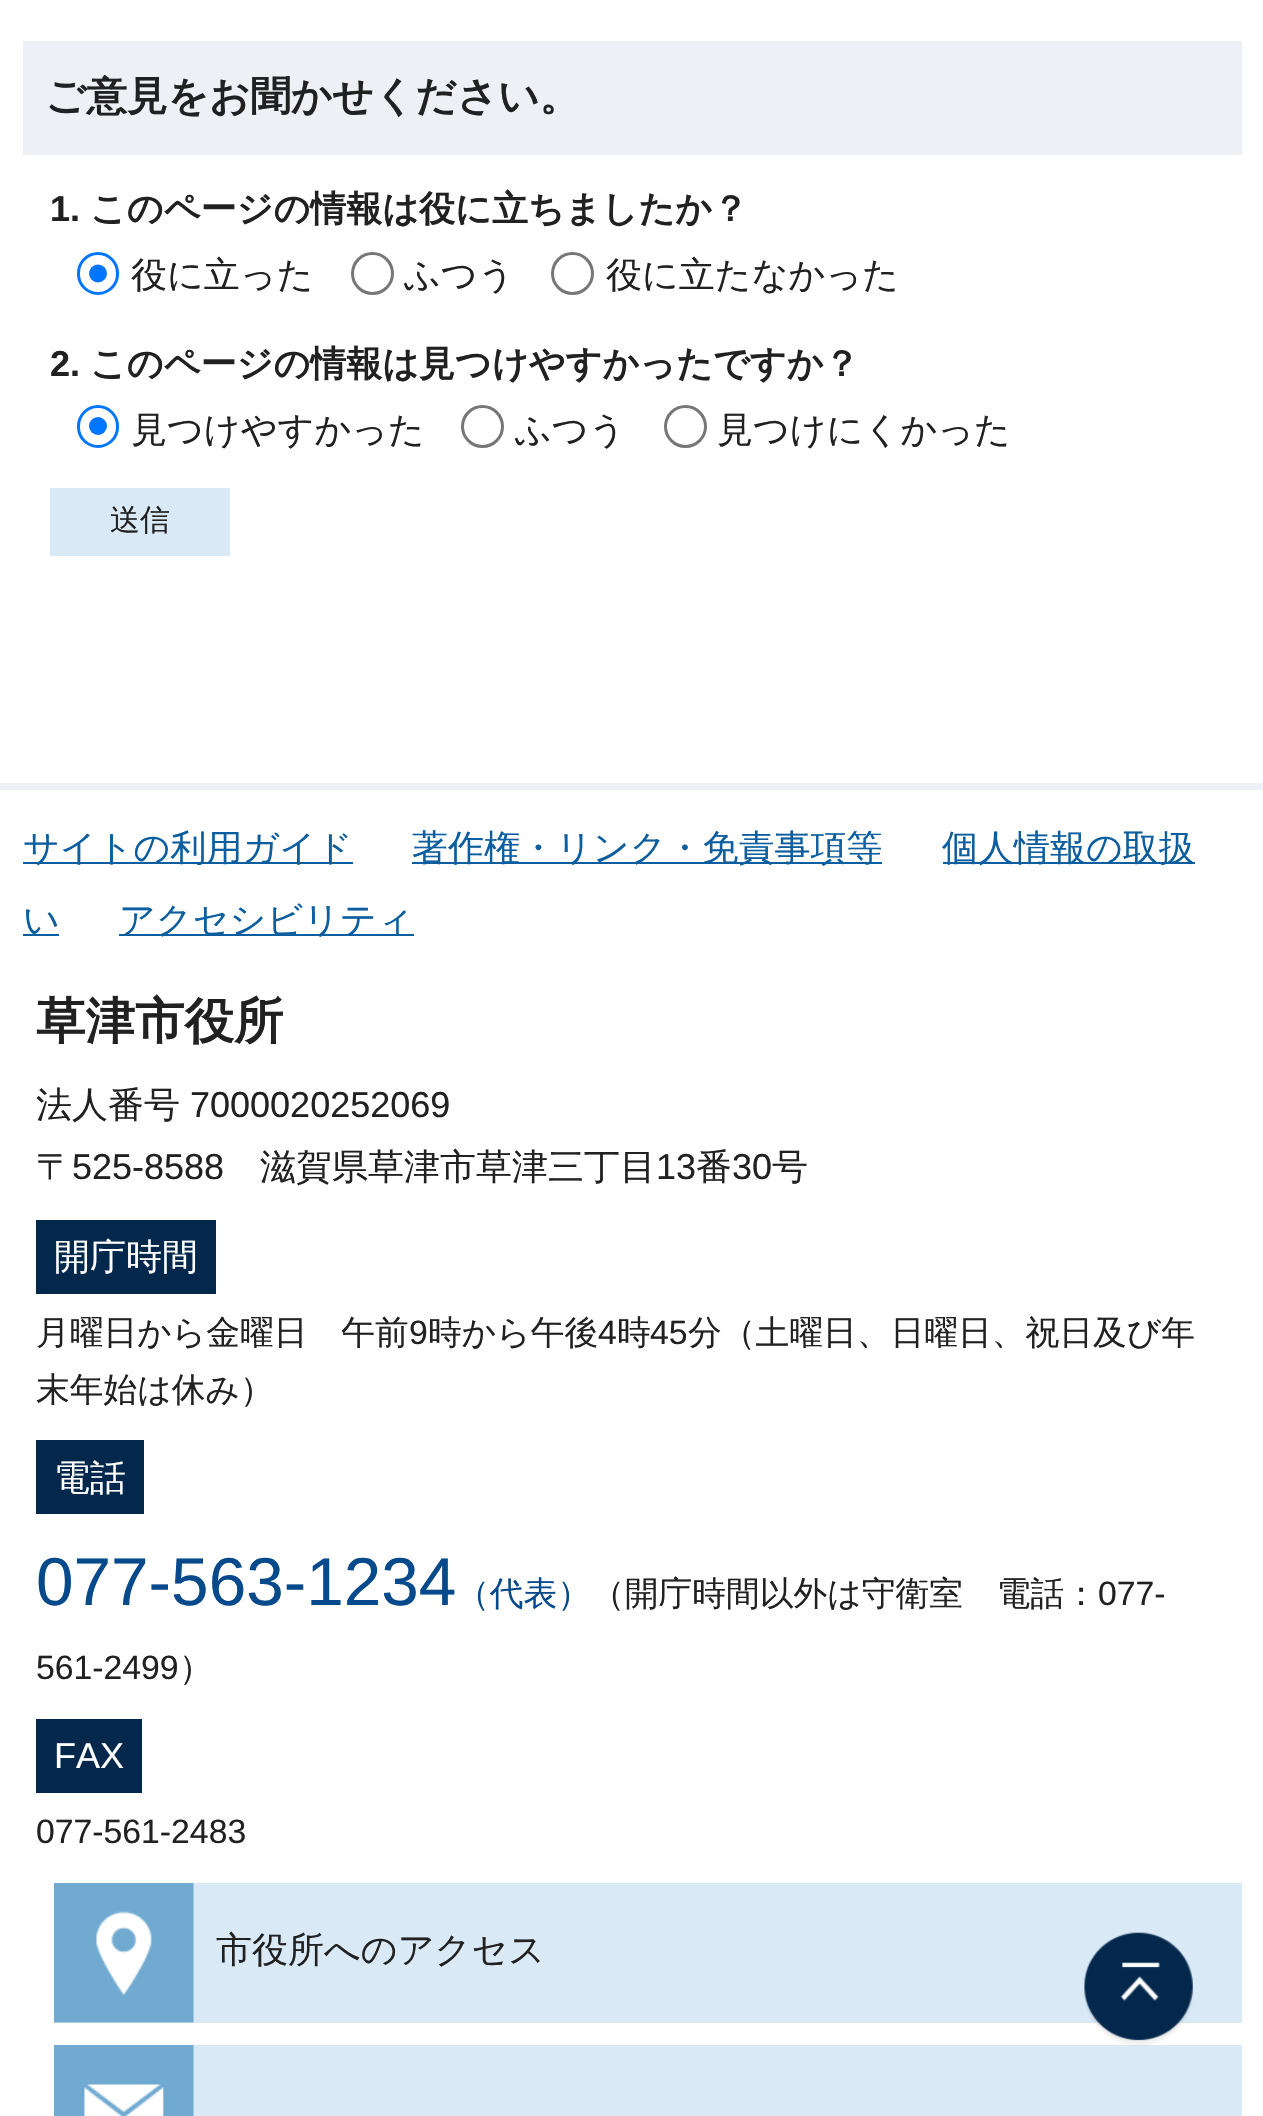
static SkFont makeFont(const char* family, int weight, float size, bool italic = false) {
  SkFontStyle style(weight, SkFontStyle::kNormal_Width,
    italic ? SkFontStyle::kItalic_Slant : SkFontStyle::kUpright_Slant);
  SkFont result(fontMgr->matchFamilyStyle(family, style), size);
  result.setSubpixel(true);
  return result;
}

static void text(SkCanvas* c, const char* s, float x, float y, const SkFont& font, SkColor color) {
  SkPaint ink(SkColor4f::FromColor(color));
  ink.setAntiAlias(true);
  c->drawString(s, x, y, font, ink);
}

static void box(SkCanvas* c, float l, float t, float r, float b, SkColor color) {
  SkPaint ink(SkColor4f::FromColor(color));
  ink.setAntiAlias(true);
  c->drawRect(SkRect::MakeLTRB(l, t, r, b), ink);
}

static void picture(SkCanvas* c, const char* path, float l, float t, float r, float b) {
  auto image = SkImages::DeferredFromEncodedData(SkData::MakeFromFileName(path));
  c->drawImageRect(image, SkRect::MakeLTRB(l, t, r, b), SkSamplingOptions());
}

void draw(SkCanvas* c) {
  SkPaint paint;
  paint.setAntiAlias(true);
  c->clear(0xffffffff);
  box(c, 23, 41, 1242, 155, 0xffedf1f5);
  SkFont face1 = makeFont("WenQuanYi Zen Hei", 700, 40.5f);
  text(c, "ご意見をお聞かせください。", 45, 110, face1, 0xff212121);
  SkFont face2 = makeFont("Liberation Sans", 700, 36);
  text(c, "1.", 50, 221, face2, 0xff212121);
  SkFont face3 = makeFont("WenQuanYi Zen Hei", 700, 36);
  text(c, "このページの情報は役に立ちましたか？", 90, 221, face3, 0xff212121);
  paint.setStyle(SkPaint::kStroke_Style);
  paint.setStrokeWidth(3);
  paint.setColor(0xff0075ff);
  c->drawRoundRect(SkRect::MakeLTRB(78.5f, 253.5f, 117.5f, 293.5f), 19.5f, 19.5f, paint);
  paint.setStyle(SkPaint::kFill_Style);
  c->drawCircle(98, 273.5f, 9, paint);
  SkFont face4 = makeFont("WenQuanYi Zen Hei", 500, 36);
  text(c, "役に立った", 131, 287, face4, 0xff212121);
  paint.setStyle(SkPaint::kStroke_Style);
  paint.setColor(0xff767676);
  c->drawCircle(372.5f, 273.5f, 20, paint);
  text(c, "ふつう", 404, 287, face4, 0xff212121);
  c->drawCircle(572.5f, 273.5f, 20, paint);
  text(c, "役に立たなかった", 606, 287, face4, 0xff212121);
  text(c, "2.", 50, 376, face2, 0xff212121);
  text(c, "このページの情報は見つけやすかったですか？", 90, 376, face3, 0xff212121);
  paint.setColor(0xff0075ff);
  c->drawRoundRect(SkRect::MakeLTRB(78.5f, 406.5f, 117.5f, 446.5f), 19.5f, 19.5f, paint);
  paint.setStyle(SkPaint::kFill_Style);
  c->drawCircle(98, 426, 9, paint);
  text(c, "見つけやすかった", 131, 442, face4, 0xff212121);
  paint.setStyle(SkPaint::kStroke_Style);
  paint.setColor(0xff767676);
  c->drawCircle(482.5f, 426.5f, 20, paint);
  text(c, "ふつう", 515, 442, face4, 0xff212121);
  c->drawCircle(685.5f, 426.5f, 20, paint);
  text(c, "見つけにくかった", 717, 442, face4, 0xff212121);
  box(c, 50, 488, 230, 556, 0xffdae9f6);
  SkFont face5 = makeFont("WenQuanYi Zen Hei", 500, 30);
  text(c, "送信", 110, 530, face5, 0xff212121);
  box(c, 0, 783, 1263, 790, 0xffedf1f5);
  box(c, 23, 862, 353, 864, 0xff0c5e9f);
  text(c, "サイトの利用ガイド", 23, 860, face4, 0xff0c5e9f);
  box(c, 412, 862, 882, 864, 0xff0c5e9f);
  text(c, "著作権・リンク・免責事項等", 412, 860, face4, 0xff0c5e9f);
  box(c, 943, 862, 1195, 864, 0xff0c5e9f);
  text(c, "個人情報の取扱", 942, 860, face4, 0xff0c5e9f);
  text(c, "い", 23, 932, face4, 0xff0c5e9f);
  box(c, 23, 934, 59, 936, 0xff0c5e9f);
  box(c, 119, 934, 414, 936, 0xff0c5e9f);
  text(c, "アクセシビリティ", 119, 932, face4, 0xff0c5e9f);
  SkFont face6 = makeFont("WenQuanYi Zen Hei", 700, 49.5f);
  text(c, "草津市役所", 36, 1038, face6, 0xff212121);
  text(c, "法人番号", 36, 1117, face4, 0xff212121);
  SkFont face7 = makeFont("Liberation Sans", 400, 36);
  text(c, "7000020252069", 190, 1117, face7, 0xff212121);
  text(c, "〒", 36, 1179, face4, 0xff212121);
  text(c, "525-8588", 72, 1179, face7, 0xff212121);
  text(c, "滋賀県草津市草津三丁目", 260, 1179, face4, 0xff212121);
  text(c, "13", 656, 1179, face7, 0xff212121);
  text(c, "番", 696, 1179, face4, 0xff212121);
  text(c, "30", 732, 1179, face7, 0xff212121);
  text(c, "号", 772, 1179, face4, 0xff212121);
  box(c, 36, 1220, 216, 1294, 0xff04284c);
  text(c, "開庁時間", 54, 1269, face4, 0xffffffff);
  SkFont face8 = makeFont("WenQuanYi Zen Hei", 500, 33.75f);
  text(c, "月曜日から金曜日　午前", 36, 1344, face8, 0xff212121);
  SkFont face9 = makeFont("Liberation Sans", 400, 33.75f);
  text(c, "9", 409, 1344, face9, 0xff212121);
  text(c, "時から午後", 428, 1344, face8, 0xff212121);
  text(c, "4", 598, 1344, face9, 0xff212121);
  text(c, "時", 617, 1344, face8, 0xff212121);
  text(c, "45", 650, 1344, face9, 0xff212121);
  text(c, "分（土曜日、日曜日、祝日及び年", 688, 1344, face8, 0xff212121);
  text(c, "末年始は休み）", 36, 1401, face8, 0xff212121);
  box(c, 36, 1440, 144, 1514, 0xff04284c);
  text(c, "電話", 54, 1490, face4, 0xffffffff);
  SkFont face10 = makeFont("Liberation Sans", 400, 67.5f);
  text(c, "077-563-1234", 36, 1605, face10, 0xff074a8c);
  text(c, "（代表）", 456, 1605, face8, 0xff074a8c);
  text(c, "（開庁時間以外は守衛室　電話：", 591, 1605, face8, 0xff212121);
  text(c, "077-", 1098, 1605, face9, 0xff212121);
  text(c, "561-2499", 36, 1679, face9, 0xff212121);
  text(c, "）", 179, 1679, face8, 0xff212121);
  box(c, 36, 1719, 142, 1793, 0xff04284c);
  text(c, "FAX", 54, 1768, face7, 0xffffffff);
  text(c, "077-561-2483", 36, 1843, face9, 0xff212121);
  box(c, 54, 1883, 1242, 2023, 0xffdae9f6);
  picture(c, "img_01.png", 54, 1883, 194, 2023);
  text(c, "市役所へのアクセス", 216, 1962, face4, 0xff212121);
  box(c, 193, 2045, 1242, 2116, 0xffdae9f6);
  picture(c, "img_02.png", 54, 2045, 194, 2116);
  picture(c, "img_03.png", 1084, 1932, 1193, 2046);
}
